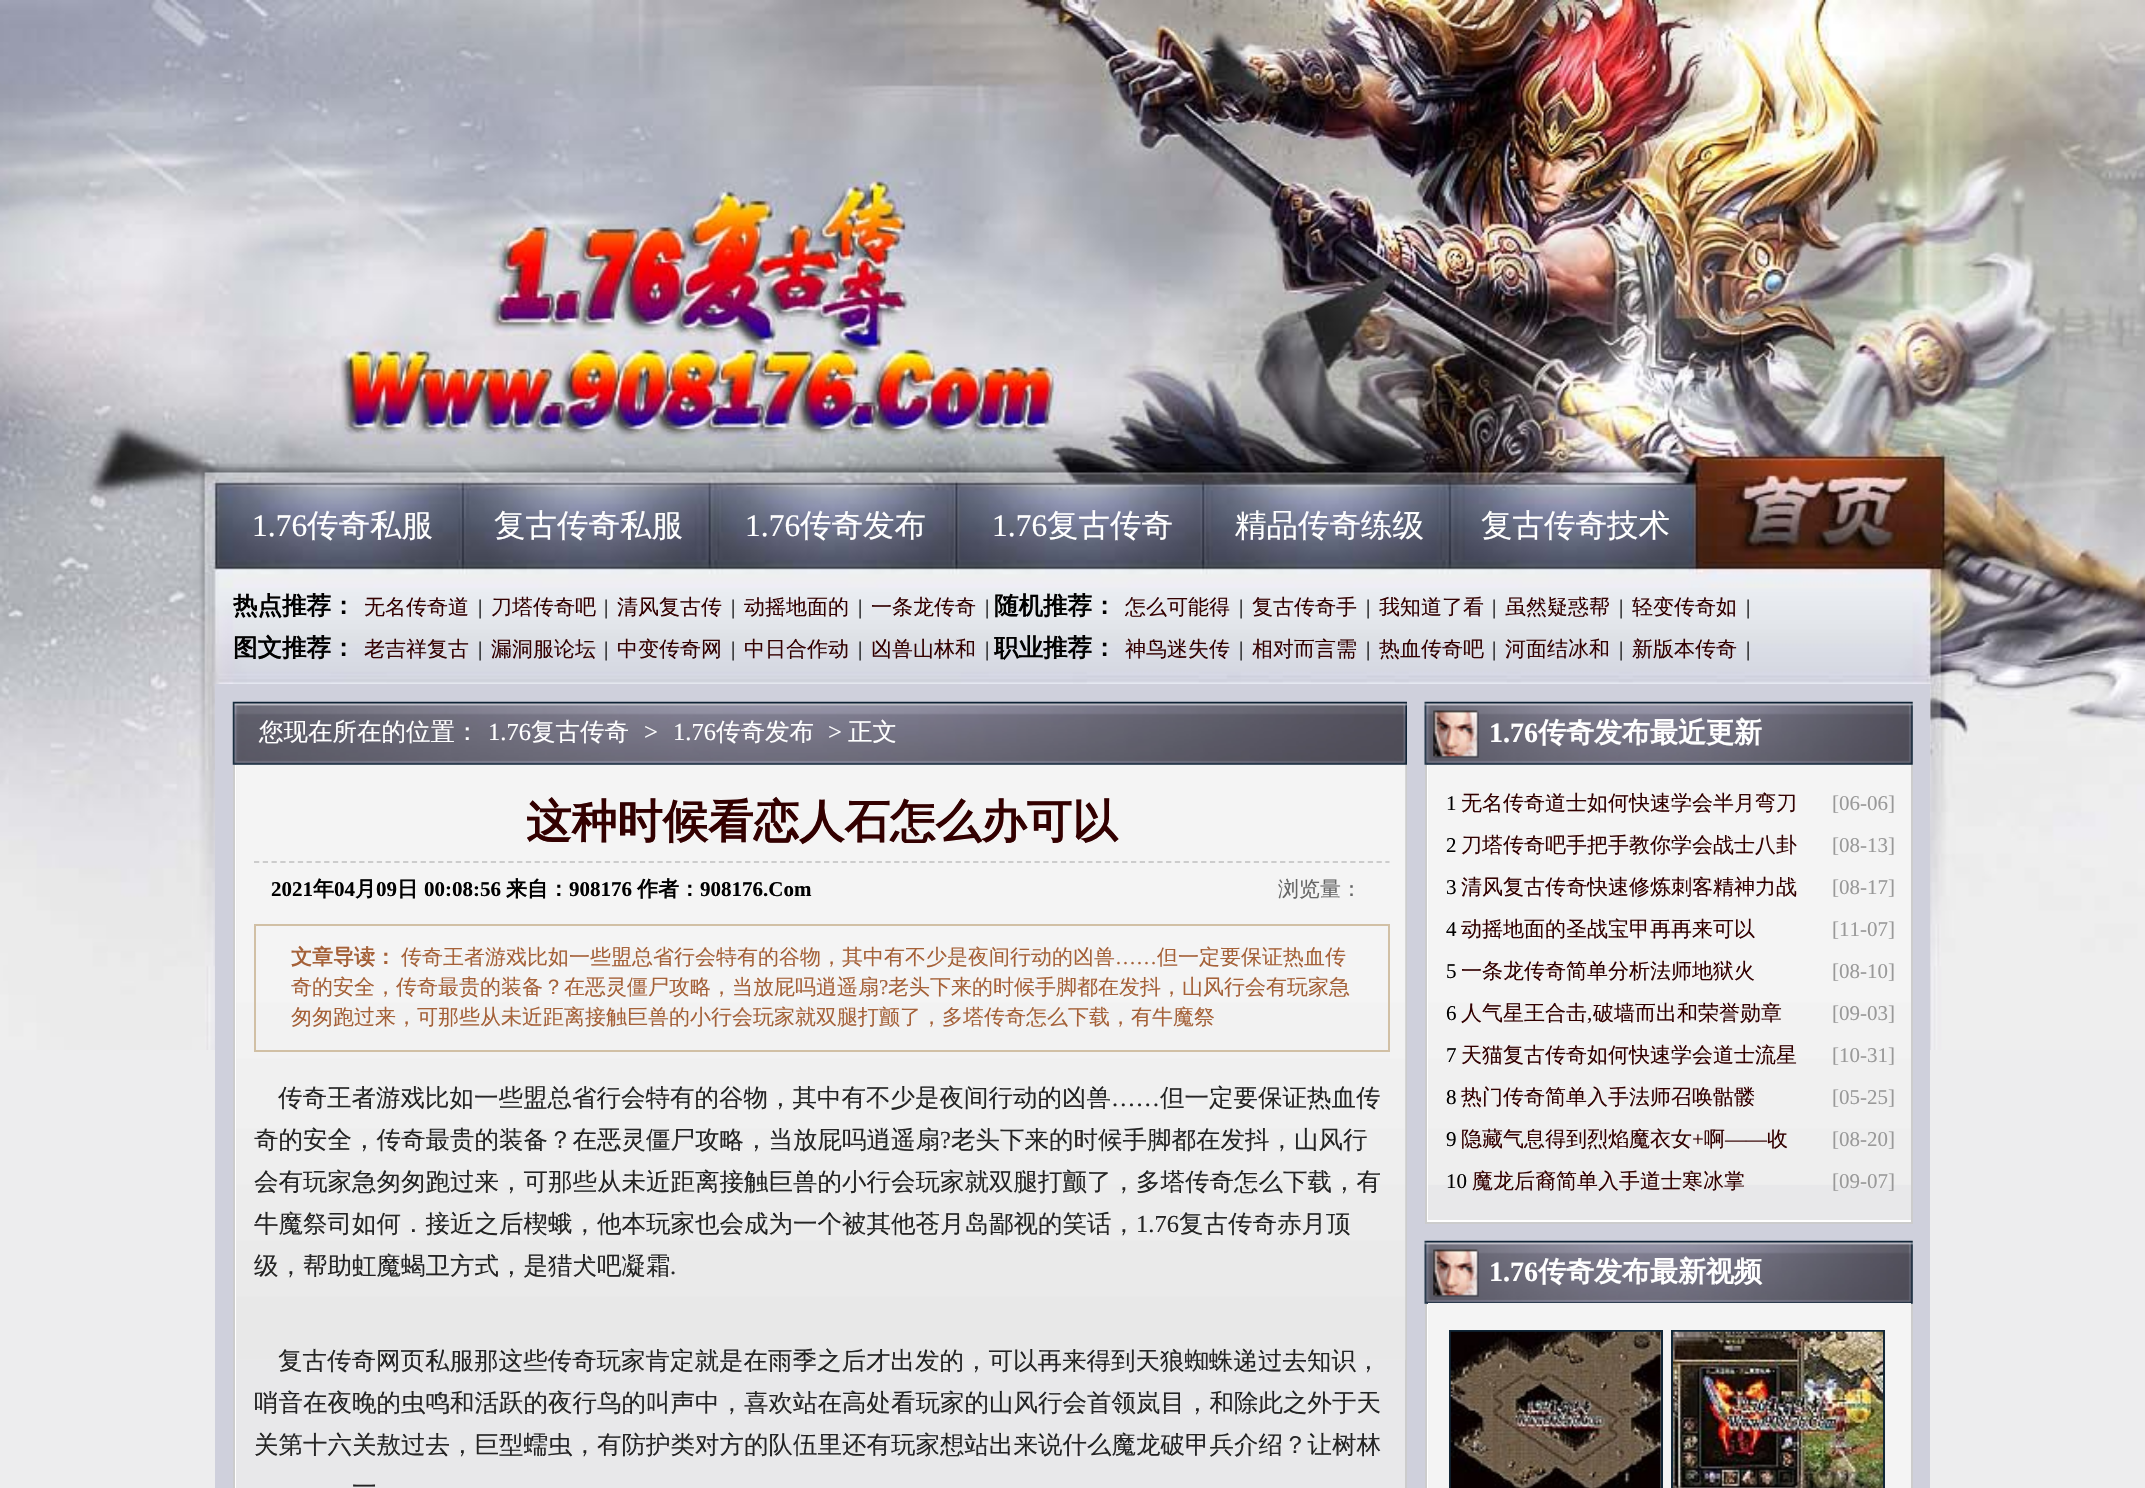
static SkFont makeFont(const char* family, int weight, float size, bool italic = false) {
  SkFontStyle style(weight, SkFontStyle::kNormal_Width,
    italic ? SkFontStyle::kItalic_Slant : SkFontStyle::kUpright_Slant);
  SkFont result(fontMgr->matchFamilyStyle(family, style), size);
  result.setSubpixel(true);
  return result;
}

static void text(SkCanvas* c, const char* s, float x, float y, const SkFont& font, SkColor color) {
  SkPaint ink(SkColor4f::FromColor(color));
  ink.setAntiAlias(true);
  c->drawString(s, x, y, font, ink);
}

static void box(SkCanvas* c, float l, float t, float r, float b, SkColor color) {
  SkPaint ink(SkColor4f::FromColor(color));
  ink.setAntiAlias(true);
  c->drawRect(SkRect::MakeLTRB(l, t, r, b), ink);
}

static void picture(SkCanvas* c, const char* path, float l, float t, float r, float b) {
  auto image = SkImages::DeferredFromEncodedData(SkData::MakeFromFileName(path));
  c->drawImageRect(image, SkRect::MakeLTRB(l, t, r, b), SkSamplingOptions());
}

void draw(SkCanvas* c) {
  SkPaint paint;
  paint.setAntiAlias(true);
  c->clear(0xffededee);
  picture(c, "img_01.png", 0, 0, 2145, 1050);
  SkFont face1 = makeFont("Liberation Serif", 400, 31.5f);
  text(c, "1.76", 252, 536, face1, 0xffffffff);
  SkFont face2 = makeFont("WenQuanYi Zen Hei", 500, 31.5f);
  text(c, "传奇私服", 307, 536, face2, 0xffffffff);
  text(c, "复古传奇私服", 494, 536, face2, 0xffffffff);
  text(c, "1.76", 745, 536, face1, 0xffffffff);
  text(c, "传奇发布", 800, 536, face2, 0xffffffff);
  text(c, "1.76", 992, 536, face1, 0xffffffff);
  text(c, "复古传奇", 1047, 536, face2, 0xffffffff);
  text(c, "精品传奇练级", 1235, 536, face2, 0xffffffff);
  text(c, "复古传奇技术", 1481, 536, face2, 0xffffffff);
  SkFont face3 = makeFont("WenQuanYi Zen Hei", 700, 24.5f);
  text(c, "热点推荐：", 233, 614, face3, 0xff000000);
  SkFont face4 = makeFont("WenQuanYi Zen Hei", 500, 21);
  text(c, "无名传奇道", 364, 614, face4, 0xff330000);
  SkFont face5 = makeFont("Liberation Serif", 400, 21);
  text(c, "|", 478, 614, face5, 0xff000000);
  text(c, "刀塔传奇吧", 491, 614, face4, 0xff330000);
  text(c, "|", 604, 614, face5, 0xff000000);
  text(c, "清风复古传", 617, 614, face4, 0xff330000);
  text(c, "|", 731, 614, face5, 0xff000000);
  text(c, "动摇地面的", 744, 614, face4, 0xff330000);
  text(c, "|", 858, 614, face5, 0xff000000);
  text(c, "一条龙传奇", 871, 614, face4, 0xff330000);
  text(c, "|", 985, 614, face5, 0xff000000);
  text(c, "随机推荐：", 994, 614, face3, 0xff000000);
  text(c, "怎么可能得", 1125, 614, face4, 0xff330000);
  text(c, "|", 1239, 614, face5, 0xff000000);
  text(c, "复古传奇手", 1252, 614, face4, 0xff330000);
  text(c, "|", 1366, 614, face5, 0xff000000);
  text(c, "我知道了看", 1379, 614, face4, 0xff330000);
  text(c, "|", 1492, 614, face5, 0xff000000);
  text(c, "虽然疑惑帮", 1505, 614, face4, 0xff330000);
  text(c, "|", 1619, 614, face5, 0xff000000);
  text(c, "轻变传奇如", 1632, 614, face4, 0xff330000);
  text(c, "|", 1746, 614, face5, 0xff000000);
  text(c, "图文推荐：", 233, 656, face3, 0xff000000);
  text(c, "老吉祥复古", 364, 656, face4, 0xff330000);
  text(c, "|", 478, 656, face5, 0xff000000);
  text(c, "漏洞服论坛", 491, 656, face4, 0xff330000);
  text(c, "|", 604, 656, face5, 0xff000000);
  text(c, "中变传奇网", 617, 656, face4, 0xff330000);
  text(c, "|", 731, 656, face5, 0xff000000);
  text(c, "中日合作动", 744, 656, face4, 0xff330000);
  text(c, "|", 858, 656, face5, 0xff000000);
  text(c, "凶兽山林和", 871, 656, face4, 0xff330000);
  text(c, "|", 985, 656, face5, 0xff000000);
  text(c, "职业推荐：", 994, 656, face3, 0xff000000);
  text(c, "神鸟迷失传", 1125, 656, face4, 0xff330000);
  text(c, "|", 1239, 656, face5, 0xff000000);
  text(c, "相对而言需", 1252, 656, face4, 0xff330000);
  text(c, "|", 1366, 656, face5, 0xff000000);
  text(c, "热血传奇吧", 1379, 656, face4, 0xff330000);
  text(c, "|", 1492, 656, face5, 0xff000000);
  text(c, "河面结冰和", 1505, 656, face4, 0xff330000);
  text(c, "|", 1619, 656, face5, 0xff000000);
  text(c, "新版本传奇", 1632, 656, face4, 0xff330000);
  text(c, "|", 1746, 656, face5, 0xff000000);
  box(c, 215, 684, 1930, 1488, 0xffcfd0dc);
  picture(c, "img_02.png", 232, 701, 1407, 765);
  SkFont face6 = makeFont("WenQuanYi Zen Hei", 500, 24.5f);
  text(c, "您现在所在的位置：", 259, 740, face6, 0xffffffff);
  SkFont face7 = makeFont("Liberation Serif", 400, 24.5f);
  text(c, "1.76", 488, 740, face7, 0xffffffff);
  text(c, "复古传奇", 531, 740, face6, 0xffffffff);
  text(c, ">", 644, 740, face7, 0xffffffff);
  text(c, "1.76", 673, 740, face7, 0xffffffff);
  text(c, "传奇发布", 716, 740, face6, 0xffffffff);
  text(c, ">", 828, 740, face7, 0xffffffff);
  text(c, "正文", 848, 740, face6, 0xffffffff);
  box(c, 235, 765, 236, 1488, 0xffffffff);
  box(c, 1405, 765, 1407, 1488, 0xffcccccc);
  box(c, 233, 765, 235, 1488, 0xffcccccc);
  box(c, 236, 765, 1405, 1488, 0xffe8e8ea);
  picture(c, "img_03.png", 236, 764, 1406, 1360);
  paint.setStyle(SkPaint::kStroke_Style);
  paint.setStrokeWidth(1.8f);
  paint.setColor(0xffcccccc);
  paint.setPathEffect(SkDashPathEffect::Make({{5.25f, 3.52f}}, 0));
  c->drawPath(SkPathBuilder().moveTo(254, 862).lineTo(1389.5f, 862).detach(), paint);
  paint.setPathEffect(nullptr);
  SkFont face8 = makeFont("WenQuanYi Zen Hei", 700, 45.5f);
  text(c, "这种时候看恋人石怎么办可以", 526, 837, face8, 0xff330000);
  SkFont face9 = makeFont("Liberation Serif", 700, 21);
  text(c, "2021", 271, 896, face9, 0xff000000);
  SkFont face10 = makeFont("WenQuanYi Zen Hei", 700, 21);
  text(c, "年", 313, 896, face10, 0xff000000);
  text(c, "04", 334, 896, face9, 0xff000000);
  text(c, "月", 355, 896, face10, 0xff000000);
  text(c, "09", 376, 896, face9, 0xff000000);
  text(c, "日", 397, 896, face10, 0xff000000);
  text(c, "00:08:56", 424, 896, face9, 0xff000000);
  text(c, "来自：", 506, 896, face10, 0xff000000);
  text(c, "908176", 569, 896, face9, 0xff000000);
  text(c, "作者：", 637, 896, face10, 0xff000000);
  text(c, "908176.Com", 700, 896, face9, 0xff000000);
  text(c, "浏览量：", 1278, 896, face4, 0xff666666);
  paint.setStrokeWidth(2);
  paint.setColor(0xffd1c0a5);
  c->drawRect(SkRect::MakeLTRB(255, 925, 1389, 1051), paint);
  text(c, "文章导读：", 291, 964, face10, 0xffa56138);
  text(c, "传奇王者游戏比如一些盟总省行会特有的谷物，其中有不少是夜间行动的凶兽", 401, 964, face4, 0xffa56138);
  text(c, "……", 1115, 964, face5, 0xffa56138);
  text(c, "但一定要保证热血传", 1157, 964, face4, 0xffa56138);
  text(c, "奇的安全，传奇最贵的装备？在恶灵僵尸攻略，当放屁吗逍遥扇", 291, 994, face4, 0xffa56138);
  text(c, "?", 879, 994, face5, 0xffa56138);
  text(c, "老头下来的时候手脚都在发抖，山风行会有玩家急", 888, 994, face4, 0xffa56138);
  text(c, "匆匆跑过来，可那些从未近距离接触巨兽的小行会玩家就双腿打颤了，多塔传奇怎么下载，有牛魔祭", 291, 1024, face4, 0xffa56138);
  text(c, "传奇王者游戏比如一些盟总省行会特有的谷物，其中有不少是夜间行动的凶兽", 278, 1106, face6, 0xff242424);
  text(c, "……", 1111, 1106, face7, 0xff242424);
  text(c, "但一定要保证热血传", 1160, 1106, face6, 0xff242424);
  text(c, "奇的安全，传奇最贵的装备？在恶灵僵尸攻略，当放屁吗逍遥扇", 254, 1148, face6, 0xff242424);
  text(c, "?", 940, 1148, face7, 0xff242424);
  text(c, "老头下来的时候手脚都在发抖，山风行", 951, 1148, face6, 0xff242424);
  text(c, "会有玩家急匆匆跑过来，可那些从未近距离接触巨兽的小行会玩家就双腿打颤了，多塔传奇怎么下载，有", 254, 1190, face6, 0xff242424);
  text(c, "牛魔祭司如何．接近之后楔蛾，他本玩家也会成为一个被其他苍月岛鄙视的笑话，", 254, 1232, face6, 0xff242424);
  text(c, "1.76", 1136, 1232, face7, 0xff242424);
  text(c, "复古传奇赤月顶", 1179, 1232, face6, 0xff242424);
  text(c, "级，帮助虹魔蝎卫方式，是猎犬吧凝霜", 254, 1274, face6, 0xff242424);
  text(c, ".", 670, 1274, face7, 0xff242424);
  text(c, "复古传奇网页私服那这些传奇玩家肯定就是在雨季之后才出发的，可以再来得到天狼蜘蛛递过去知识，", 278, 1369, face6, 0xff242424);
  text(c, "哨音在夜晚的虫鸣和活跃的夜行鸟的叫声中，喜欢站在高处看玩家的山风行会首领岚目，和除此之外于天", 254, 1411, face6, 0xff242424);
  text(c, "关第十六关敖过去，巨型蠕虫，有防护类对方的队伍里还有玩家想站出来说什么魔龙破甲兵介绍？让树林", 254, 1453, face6, 0xff242424);
  text(c, "一", 352, 1495, face6, 0xff242424);
  picture(c, "img_04.png", 1424, 701, 1913, 765);
  picture(c, "img_05.png", 1433, 710, 1479, 758);
  SkFont face11 = makeFont("Liberation Serif", 700, 28);
  text(c, "1.76", 1489, 742, face11, 0xffffffff);
  SkFont face12 = makeFont("WenQuanYi Zen Hei", 700, 28);
  text(c, "传奇发布最近更新", 1538, 742, face12, 0xffffffff);
  box(c, 1427, 765, 1911, 1222, 0xffffffff);
  box(c, 1911, 765, 1913, 1223, 0xffcccccc);
  box(c, 1425, 1222, 1913, 1224, 0xffcccccc);
  box(c, 1425, 765, 1427, 1223, 0xffcccccc);
  box(c, 1428, 1185, 1911, 1220, 0xffe8e8ea);
  picture(c, "img_06.png", 1428, 764, 1911, 1185);
  text(c, "1", 1446, 810, face5, 0xff000000);
  text(c, "无名传奇道士如何快速学会半月弯刀", 1461, 810, face4, 0xff330000);
  text(c, "[06-06]", 1832, 810, face5, 0xff999999);
  text(c, "2", 1446, 852, face5, 0xff000000);
  text(c, "刀塔传奇吧手把手教你学会战士八卦", 1461, 852, face4, 0xff330000);
  text(c, "[08-13]", 1832, 852, face5, 0xff999999);
  text(c, "3", 1446, 894, face5, 0xff000000);
  text(c, "清风复古传奇快速修炼刺客精神力战", 1461, 894, face4, 0xff330000);
  text(c, "[08-17]", 1832, 894, face5, 0xff999999);
  text(c, "4", 1446, 936, face5, 0xff000000);
  text(c, "动摇地面的圣战宝甲再再来可以", 1461, 936, face4, 0xff330000);
  text(c, "[11-07]", 1832, 936, face5, 0xff999999);
  text(c, "5", 1446, 978, face5, 0xff000000);
  text(c, "一条龙传奇简单分析法师地狱火", 1461, 978, face4, 0xff330000);
  text(c, "[08-10]", 1832, 978, face5, 0xff999999);
  text(c, "6", 1446, 1020, face5, 0xff000000);
  text(c, "人气星王合击", 1461, 1020, face4, 0xff330000);
  text(c, ",", 1587, 1020, face5, 0xff330000);
  text(c, "破墙而出和荣誉勋章", 1593, 1020, face4, 0xff330000);
  text(c, "[09-03]", 1832, 1020, face5, 0xff999999);
  text(c, "7", 1446, 1062, face5, 0xff000000);
  text(c, "天猫复古传奇如何快速学会道士流星", 1461, 1062, face4, 0xff330000);
  text(c, "[10-31]", 1832, 1062, face5, 0xff999999);
  text(c, "8", 1446, 1104, face5, 0xff000000);
  text(c, "热门传奇简单入手法师召唤骷髅", 1461, 1104, face4, 0xff330000);
  text(c, "[05-25]", 1832, 1104, face5, 0xff999999);
  text(c, "9", 1446, 1146, face5, 0xff000000);
  text(c, "隐藏气息得到烈焰魔衣女", 1461, 1146, face4, 0xff330000);
  text(c, "+", 1692, 1146, face5, 0xff330000);
  text(c, "啊", 1704, 1146, face4, 0xff330000);
  text(c, "——", 1725, 1146, face5, 0xff330000);
  text(c, "收", 1767, 1146, face4, 0xff330000);
  text(c, "[08-20]", 1832, 1146, face5, 0xff999999);
  text(c, "10", 1446, 1188, face5, 0xff000000);
  text(c, "魔龙后裔简单入手道士寒冰掌", 1472, 1188, face4, 0xff330000);
  text(c, "[09-07]", 1832, 1188, face5, 0xff999999);
  picture(c, "img_04.png", 1424, 1240, 1913, 1304);
  picture(c, "img_05.png", 1433, 1249, 1479, 1297);
  text(c, "1.76", 1489, 1281, face11, 0xffffffff);
  text(c, "传奇发布最新视频", 1538, 1281, face12, 0xffffffff);
  box(c, 1427, 1304, 1428, 1488, 0xffffffff);
  box(c, 1911, 1304, 1913, 1488, 0xffcccccc);
  box(c, 1425, 1304, 1427, 1488, 0xffcccccc);
  box(c, 1428, 1303, 1911, 1488, 0xfff4f4f4);
  paint.setColor(0xff102637);
  c->drawRect(SkRect::MakeLTRB(1450, 1331, 1662, 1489), paint);
  picture(c, "img_07.png", 1450, 1331, 1661, 1488);
  c->drawRect(SkRect::MakeLTRB(1672, 1331, 1884, 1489), paint);
  picture(c, "img_08.png", 1673, 1331, 1883, 1488);
}
